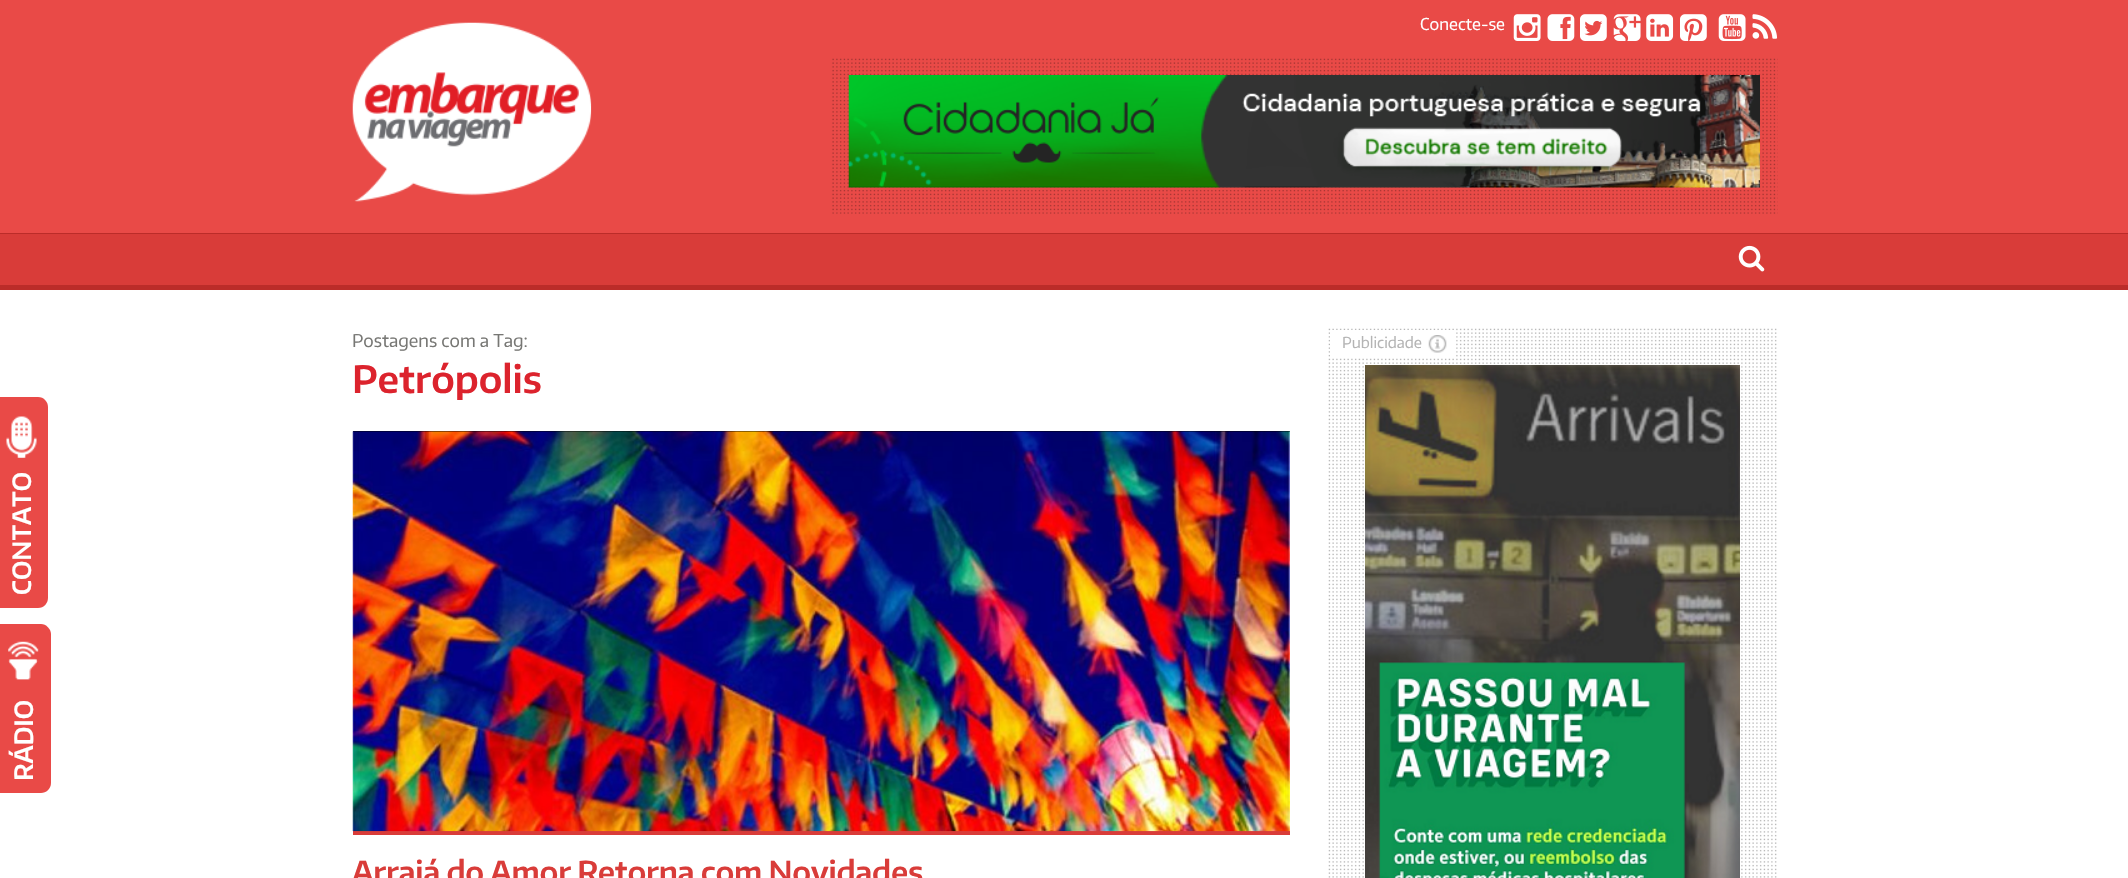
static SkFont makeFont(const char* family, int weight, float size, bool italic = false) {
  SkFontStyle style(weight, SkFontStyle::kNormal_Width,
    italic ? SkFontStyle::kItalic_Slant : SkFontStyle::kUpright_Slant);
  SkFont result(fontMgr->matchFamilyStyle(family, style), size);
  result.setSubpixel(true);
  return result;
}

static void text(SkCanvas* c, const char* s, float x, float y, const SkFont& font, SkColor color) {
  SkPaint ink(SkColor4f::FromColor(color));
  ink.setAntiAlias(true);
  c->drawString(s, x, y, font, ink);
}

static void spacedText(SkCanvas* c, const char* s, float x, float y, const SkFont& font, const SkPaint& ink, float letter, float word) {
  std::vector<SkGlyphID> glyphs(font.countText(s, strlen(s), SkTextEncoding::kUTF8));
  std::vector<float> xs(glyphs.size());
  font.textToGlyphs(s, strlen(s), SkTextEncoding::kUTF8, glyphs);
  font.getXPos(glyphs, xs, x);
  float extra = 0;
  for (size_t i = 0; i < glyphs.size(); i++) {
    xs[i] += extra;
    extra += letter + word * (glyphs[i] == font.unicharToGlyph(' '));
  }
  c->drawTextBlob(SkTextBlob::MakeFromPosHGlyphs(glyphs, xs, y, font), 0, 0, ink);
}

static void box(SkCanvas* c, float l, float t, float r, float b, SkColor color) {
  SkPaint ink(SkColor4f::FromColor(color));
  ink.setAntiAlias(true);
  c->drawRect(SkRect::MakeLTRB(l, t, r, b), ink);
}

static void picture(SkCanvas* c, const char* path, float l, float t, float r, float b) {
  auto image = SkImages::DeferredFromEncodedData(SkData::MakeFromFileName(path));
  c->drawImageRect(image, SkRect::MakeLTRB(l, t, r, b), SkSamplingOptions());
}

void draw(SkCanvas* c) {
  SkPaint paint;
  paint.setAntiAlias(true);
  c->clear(0xffffffff);
  box(c, 0, 0, 2128, 233, 0xffe94a47);
  picture(c, "img_01.png", 352, 22, 592, 202);
  SkFont face1 = makeFont("Encode Sans", 400, 16.25f);
  text(c, "Conecte-se", 1420, 30, face1, 0xffffffff);
  picture(c, "img_02.png", 1513, 14, 1541, 41);
  picture(c, "img_03.png", 1547, 14, 1575, 41);
  picture(c, "img_04.png", 1580, 14, 1607, 41);
  picture(c, "img_05.png", 1613, 14, 1641, 41);
  picture(c, "img_06.png", 1646, 14, 1674, 41);
  picture(c, "img_07.png", 1680, 14, 1707, 41);
  picture(c, "img_08.png", 1718, 14, 1746, 41);
  picture(c, "img_09.png", 1752, 14, 1778, 39);
  picture(c, "img_10.png", 832, 58, 1778, 214);
  picture(c, "img_11.png", 848, 75, 1760, 188);
  box(c, 0, 234, 2128, 285, 0xffd93c39);
  box(c, 0, 233, 2128, 234, 0xffbb2c29);
  box(c, 0, 285, 2128, 290, 0xffbb2c29);
  picture(c, "img_12.png", 1738, 245, 1765, 272);
  paint.setColor(0xffe94a47);
  c->drawPath(SkPathBuilder().moveTo(-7, 608).lineTo(-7, 397).lineTo(38, 397).cubicTo(44, 397, 48, 402, 48, 407).lineTo(48, 598).cubicTo(48, 603, 44, 608, 38, 608).close().detach(), paint);
  picture(c, "img_13.png", 6, 416, 37, 458);
  SkFont face2 = makeFont("Encode Sans", 600, 25);
  c->save();
  c->rotate(-90, 31, 595);
  text(c, "CONTATO", 31, 595, face2, 0xffffffff);
  c->restore();
  SkFont face3 = makeFont("Encode Sans", 400, 17.5f);
  text(c, "Postagens com a Tag:", 352, 347, face3, 0xff777774);
  c->save();
  c->clipRect(SkRect::MakeLTRB(353, 328, 1290, 400));
  SkFont face4 = makeFont("Encode Sans", 600, 37.5f);
  text(c, "Petrópolis", 352, 393, face4, 0xffdc232d);
  c->restore();
  box(c, 353, 431, 1290, 432, 0xff000000);
  box(c, 353, 831, 1290, 835, 0xffd93c39);
  picture(c, "img_14.png", 352, 431, 1290, 832);
  SkFont face5 = makeFont("Encode Sans", 600, 30);
  paint.setColor(0xffd93c39);
  spacedText(c, "Arraiá do Amor Retorna com Novidades", 352, 883, face5, paint, -0.25f, 0);
  picture(c, "img_15.png", 1328, 328, 1777, 878);
  box(c, 1330, 330, 1454, 357, 0xffffffff);
  picture(c, "img_16.png", 1428, 335, 1447, 353);
  SkFont face6 = makeFont("Encode Sans", 400, 15);
  text(c, "Publicidade", 1342, 348, face6, 0xffb4b4b4);
  picture(c, "img_17.png", 1365, 365, 1740, 878);
  paint.setColor(0xffe94a47);
  c->drawPath(SkPathBuilder().moveTo(-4, 793).lineTo(-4, 624).lineTo(41, 624).cubicTo(46, 624, 51, 629, 51, 634).lineTo(51, 783).cubicTo(51, 789, 46, 793, 41, 793).close().detach(), paint);
  picture(c, "img_18.png", 8, 641, 39, 680);
  c->save();
  c->rotate(-90, 33, 781);
  text(c, "RÁDIO", 33, 781, face2, 0xffffffff);
  c->restore();
}
